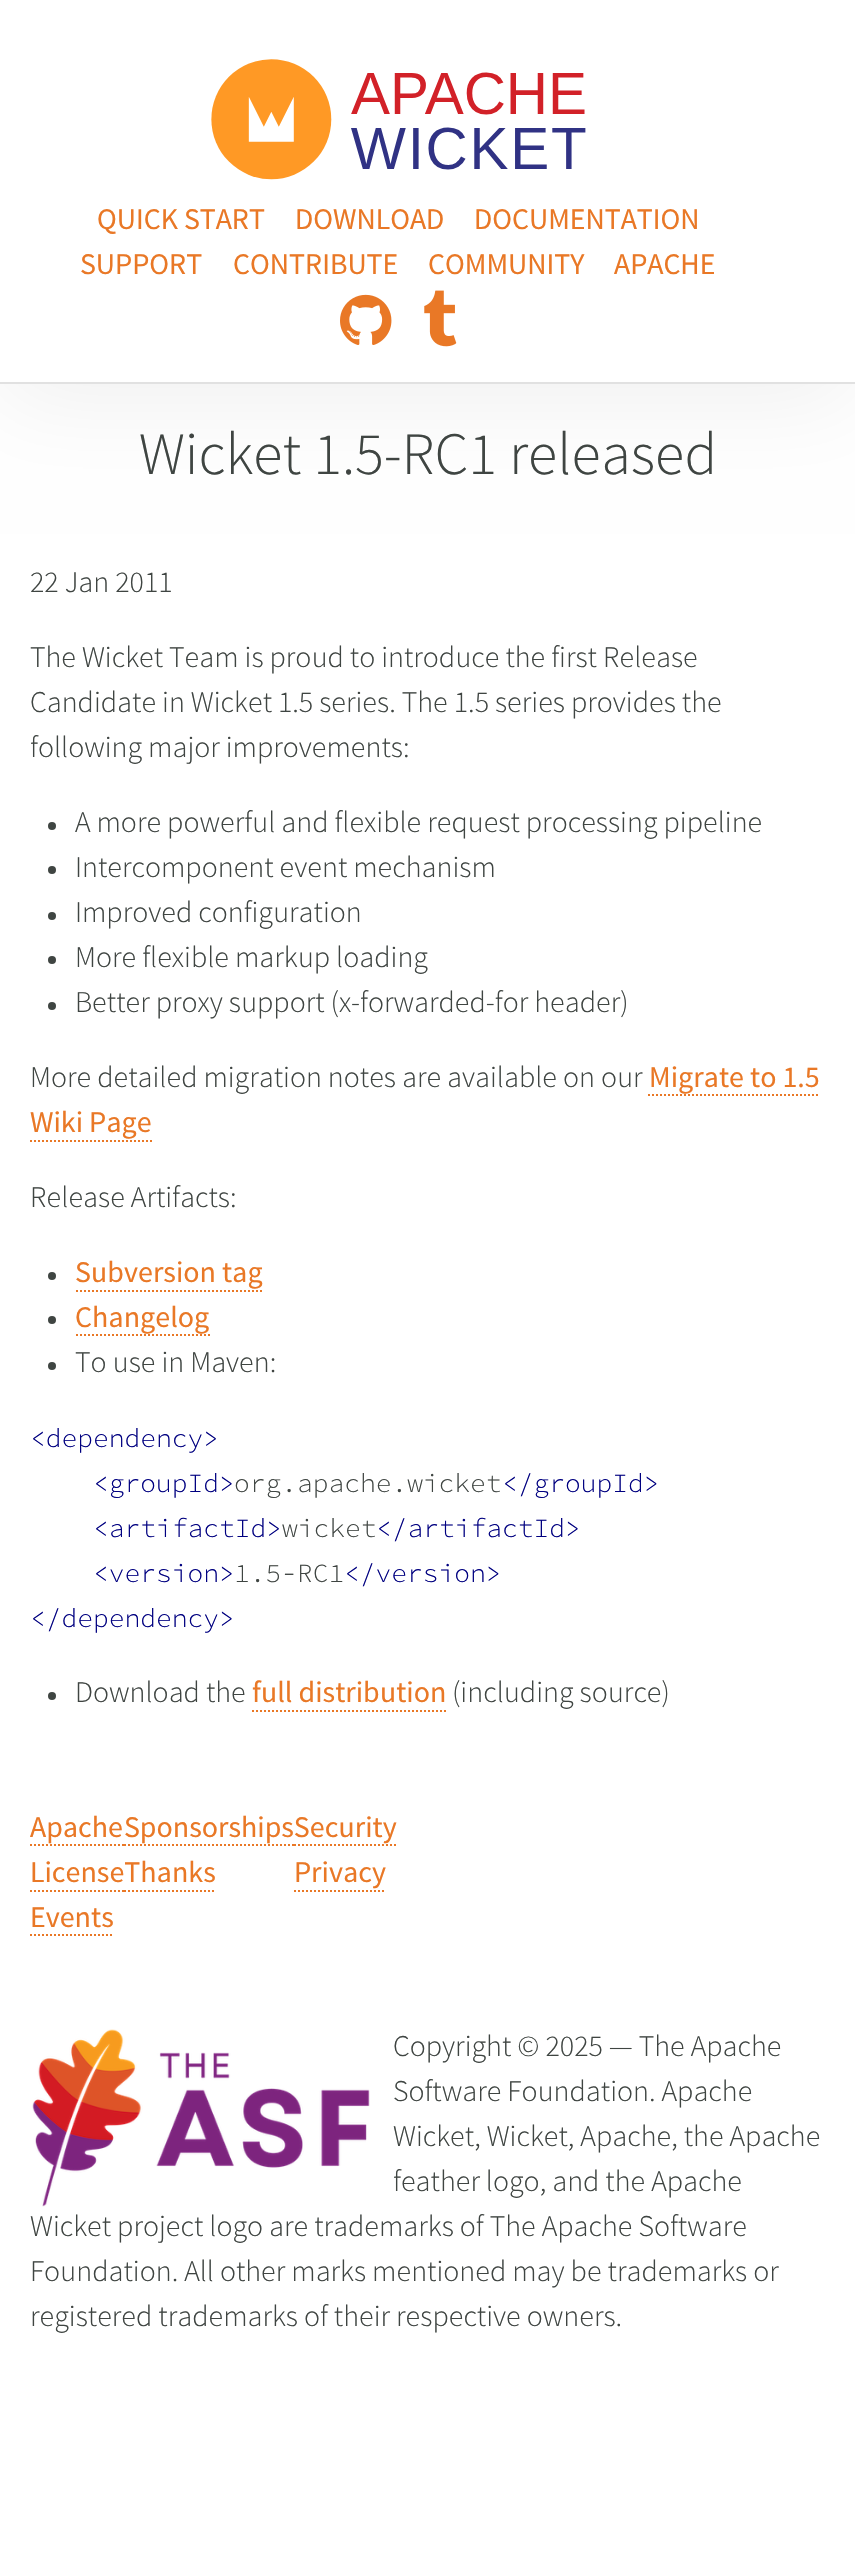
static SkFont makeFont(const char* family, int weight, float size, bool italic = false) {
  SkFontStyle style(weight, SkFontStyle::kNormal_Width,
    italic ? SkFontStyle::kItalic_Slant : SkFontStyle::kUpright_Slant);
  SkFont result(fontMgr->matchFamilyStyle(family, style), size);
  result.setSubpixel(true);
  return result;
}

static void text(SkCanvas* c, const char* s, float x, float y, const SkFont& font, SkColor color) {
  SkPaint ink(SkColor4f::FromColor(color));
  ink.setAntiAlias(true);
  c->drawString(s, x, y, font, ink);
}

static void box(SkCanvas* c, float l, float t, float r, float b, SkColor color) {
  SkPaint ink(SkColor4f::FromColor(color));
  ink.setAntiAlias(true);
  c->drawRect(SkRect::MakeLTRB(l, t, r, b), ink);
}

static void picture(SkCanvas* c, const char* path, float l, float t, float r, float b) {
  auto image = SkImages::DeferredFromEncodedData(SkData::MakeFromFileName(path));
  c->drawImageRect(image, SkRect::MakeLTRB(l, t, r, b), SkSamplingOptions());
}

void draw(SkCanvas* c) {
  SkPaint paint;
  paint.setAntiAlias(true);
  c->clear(0xffffffff);
  paint.setColor(0xfff0f0f0);
  paint.setMaskFilter(SkMaskFilter::MakeBlur(kNormal_SkBlurStyle, 45));
  c->drawRect(SkRect::MakeLTRB(0, 16, 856, 400), paint);
  paint.setMaskFilter(nullptr);
  box(c, 0, 0, 855, 382, 0xffffffff);
  box(c, 0, 382, 855, 384, 0xffe1e1e1);
  picture(c, "img_01.png", 211, 59, 586, 180);
  SkFont face1 = makeFont("Source Sans Pro", 400, 30);
  text(c, "QUICK START", 97, 229, face1, 0xffe97826);
  text(c, "DOWNLOAD", 295, 229, face1, 0xffe97826);
  text(c, "DOCUMENTATION", 474, 229, face1, 0xffe97826);
  text(c, "SUPPORT", 80, 274, face1, 0xffe97826);
  text(c, "CONTRIBUTE", 233, 274, face1, 0xffe97826);
  text(c, "COMMUNITY", 428, 274, face1, 0xffe97826);
  text(c, "APACHE", 614, 274, face1, 0xffe97826);
  picture(c, "img_02.png", 340, 294, 392, 345);
  picture(c, "img_03.png", 424, 290, 457, 347);
  SkFont face2 = makeFont("Source Sans Pro", 300, 60);
  text(c, "Wicket 1.5-RC1 released", 139, 474, face2, 0xff3f4542);
  SkFont face3 = makeFont("Source Sans Pro", 300, 30);
  text(c, "22 Jan 2011", 30, 592, face3, 0xff3f4542);
  text(c, "The Wicket Team is proud to introduce the first Release", 30, 667, face3, 0xff3f4542);
  text(c, "Candidate in Wicket 1.5 series. The 1.5 series provides the", 30, 712, face3, 0xff3f4542);
  text(c, "following major improvements:", 30, 757, face3, 0xff3f4542);
  paint.setColor(0xff3f4542);
  c->drawCircle(52, 826, 4, paint);
  text(c, "A more powerful and flexible request processing pipeline", 75, 832, face3, 0xff3f4542);
  c->drawCircle(52, 870, 4, paint);
  text(c, "Intercomponent event mechanism", 75, 877, face3, 0xff3f4542);
  c->drawCircle(52, 916, 4, paint);
  text(c, "Improved configuration", 75, 922, face3, 0xff3f4542);
  c->drawCircle(52, 960, 4, paint);
  text(c, "More flexible markup loading", 75, 967, face3, 0xff3f4542);
  c->drawCircle(52, 1006, 4, paint);
  text(c, "Better proxy support (x-forwarded-for header)", 75, 1012, face3, 0xff3f4542);
  text(c, "More detailed migration notes are available on our", 30, 1087, face3, 0xff3f4542);
  text(c, "Migrate to 1.5", 649, 1087, face1, 0xffe97826);
  paint.setStyle(SkPaint::kStroke_Style);
  paint.setStrokeWidth(2);
  paint.setColor(0xffe97826);
  paint.setPathEffect(SkDashPathEffect::Make({{2, 2}}, 0));
  c->drawPath(SkPathBuilder().moveTo(648, 1095).lineTo(820, 1095).detach(), paint);
  paint.setPathEffect(nullptr);
  text(c, "Wiki Page", 30, 1132, face1, 0xffe97826);
  paint.setPathEffect(SkDashPathEffect::Make({{2, 2}}, 0));
  c->drawPath(SkPathBuilder().moveTo(30, 1141).lineTo(152, 1141).detach(), paint);
  paint.setPathEffect(nullptr);
  text(c, "Release Artifacts:", 30, 1207, face3, 0xff3f4542);
  paint.setStyle(SkPaint::kFill_Style);
  paint.setColor(0xff3f4542);
  c->drawCircle(52, 1276, 4, paint);
  text(c, "Subversion tag", 75, 1282, face1, 0xffe97826);
  paint.setStyle(SkPaint::kStroke_Style);
  paint.setColor(0xffe97826);
  paint.setPathEffect(SkDashPathEffect::Make({{2, 2}}, 0));
  c->drawPath(SkPathBuilder().moveTo(76, 1291).lineTo(262, 1291).detach(), paint);
  paint.setPathEffect(nullptr);
  paint.setStyle(SkPaint::kFill_Style);
  paint.setColor(0xff3f4542);
  c->drawCircle(52, 1320, 4, paint);
  text(c, "Changelog", 75, 1327, face1, 0xffe97826);
  paint.setStyle(SkPaint::kStroke_Style);
  paint.setColor(0xffe97826);
  paint.setPathEffect(SkDashPathEffect::Make({{2, 2}}, 0));
  c->drawPath(SkPathBuilder().moveTo(76, 1335).lineTo(210, 1335).detach(), paint);
  paint.setPathEffect(nullptr);
  paint.setStyle(SkPaint::kFill_Style);
  paint.setColor(0xff3f4542);
  c->drawCircle(52, 1366, 4, paint);
  text(c, "To use in Maven:", 75, 1372, face3, 0xff3f4542);
  SkFont face4 = makeFont("Source Code Pro", 300, 26.25f);
  text(c, "<dependency>", 30, 1447, face4, 0xff000080);
  text(c, "<groupId>", 93, 1492, face4, 0xff000080);
  text(c, "org.apache.wicket", 234, 1492, face4, 0xff3f4542);
  text(c, "</groupId>", 502, 1492, face4, 0xff000080);
  text(c, "<artifactId>", 93, 1537, face4, 0xff000080);
  text(c, "wicket", 282, 1537, face4, 0xff3f4542);
  text(c, "</artifactId>", 376, 1537, face4, 0xff000080);
  text(c, "<version>", 93, 1582, face4, 0xff000080);
  text(c, "1.5-RC1", 234, 1582, face4, 0xff3f4542);
  text(c, "</version>", 344, 1582, face4, 0xff000080);
  text(c, "</dependency>", 30, 1627, face4, 0xff000080);
  c->drawCircle(52, 1696, 4, paint);
  text(c, "Download the", 75, 1702, face3, 0xff3f4542);
  text(c, "full distribution", 252, 1702, face1, 0xffe97826);
  paint.setStyle(SkPaint::kStroke_Style);
  paint.setColor(0xffe97826);
  paint.setPathEffect(SkDashPathEffect::Make({{2, 2}}, 0));
  c->drawPath(SkPathBuilder().moveTo(252, 1711).lineTo(446, 1711).detach(), paint);
  paint.setPathEffect(nullptr);
  text(c, "(including source)", 452, 1702, face3, 0xff3f4542);
  text(c, "Apache", 30, 1837, face1, 0xffe97826);
  paint.setPathEffect(SkDashPathEffect::Make({{2, 2}}, 0));
  c->drawPath(SkPathBuilder().moveTo(30, 1845).lineTo(124, 1845).detach(), paint);
  paint.setPathEffect(nullptr);
  text(c, "LicenseThanks", 30, 1882, face1, 0xffe97826);
  paint.setPathEffect(SkDashPathEffect::Make({{2, 2}}, 0));
  c->drawPath(SkPathBuilder().moveTo(30, 1891).lineTo(124, 1891).detach(), paint);
  paint.setPathEffect(nullptr);
  text(c, "Events", 30, 1927, face1, 0xffe97826);
  paint.setPathEffect(SkDashPathEffect::Make({{2, 2}}, 0));
  c->drawPath(SkPathBuilder().moveTo(30, 1935).lineTo(114, 1935).detach(), paint);
  paint.setPathEffect(nullptr);
  text(c, "SponsorshipsSecurity", 124, 1837, face1, 0xffe97826);
  paint.setPathEffect(SkDashPathEffect::Make({{2, 2}}, 0));
  c->drawPath(SkPathBuilder().moveTo(124, 1845).lineTo(294, 1845).detach(), paint);
  paint.setPathEffect(nullptr);
  paint.setPathEffect(SkDashPathEffect::Make({{2, 2}}, 0));
  c->drawPath(SkPathBuilder().moveTo(124, 1891).lineTo(216, 1891).detach(), paint);
  paint.setPathEffect(nullptr);
  paint.setPathEffect(SkDashPathEffect::Make({{2, 2}}, 0));
  c->drawPath(SkPathBuilder().moveTo(294, 1845).lineTo(398, 1845).detach(), paint);
  paint.setPathEffect(nullptr);
  text(c, "Privacy", 294, 1882, face1, 0xffe97826);
  paint.setPathEffect(SkDashPathEffect::Make({{2, 2}}, 0));
  c->drawPath(SkPathBuilder().moveTo(294, 1891).lineTo(386, 1891).detach(), paint);
  paint.setPathEffect(nullptr);
  picture(c, "img_04.png", 32, 2029, 370, 2207);
  text(c, "Copyright © 2025 — The Apache", 393, 2056, face3, 0xff3f4542);
  text(c, "Software Foundation. Apache", 393, 2101, face3, 0xff3f4542);
  text(c, "Wicket, Wicket, Apache, the Apache", 393, 2146, face3, 0xff3f4542);
  text(c, "feather logo, and the Apache", 393, 2191, face3, 0xff3f4542);
  text(c, "Wicket project logo are trademarks of The Apache Software", 30, 2236, face3, 0xff3f4542);
  text(c, "Foundation. All other marks mentioned may be trademarks or", 30, 2281, face3, 0xff3f4542);
  text(c, "registered trademarks of their respective owners.", 30, 2326, face3, 0xff3f4542);
}
